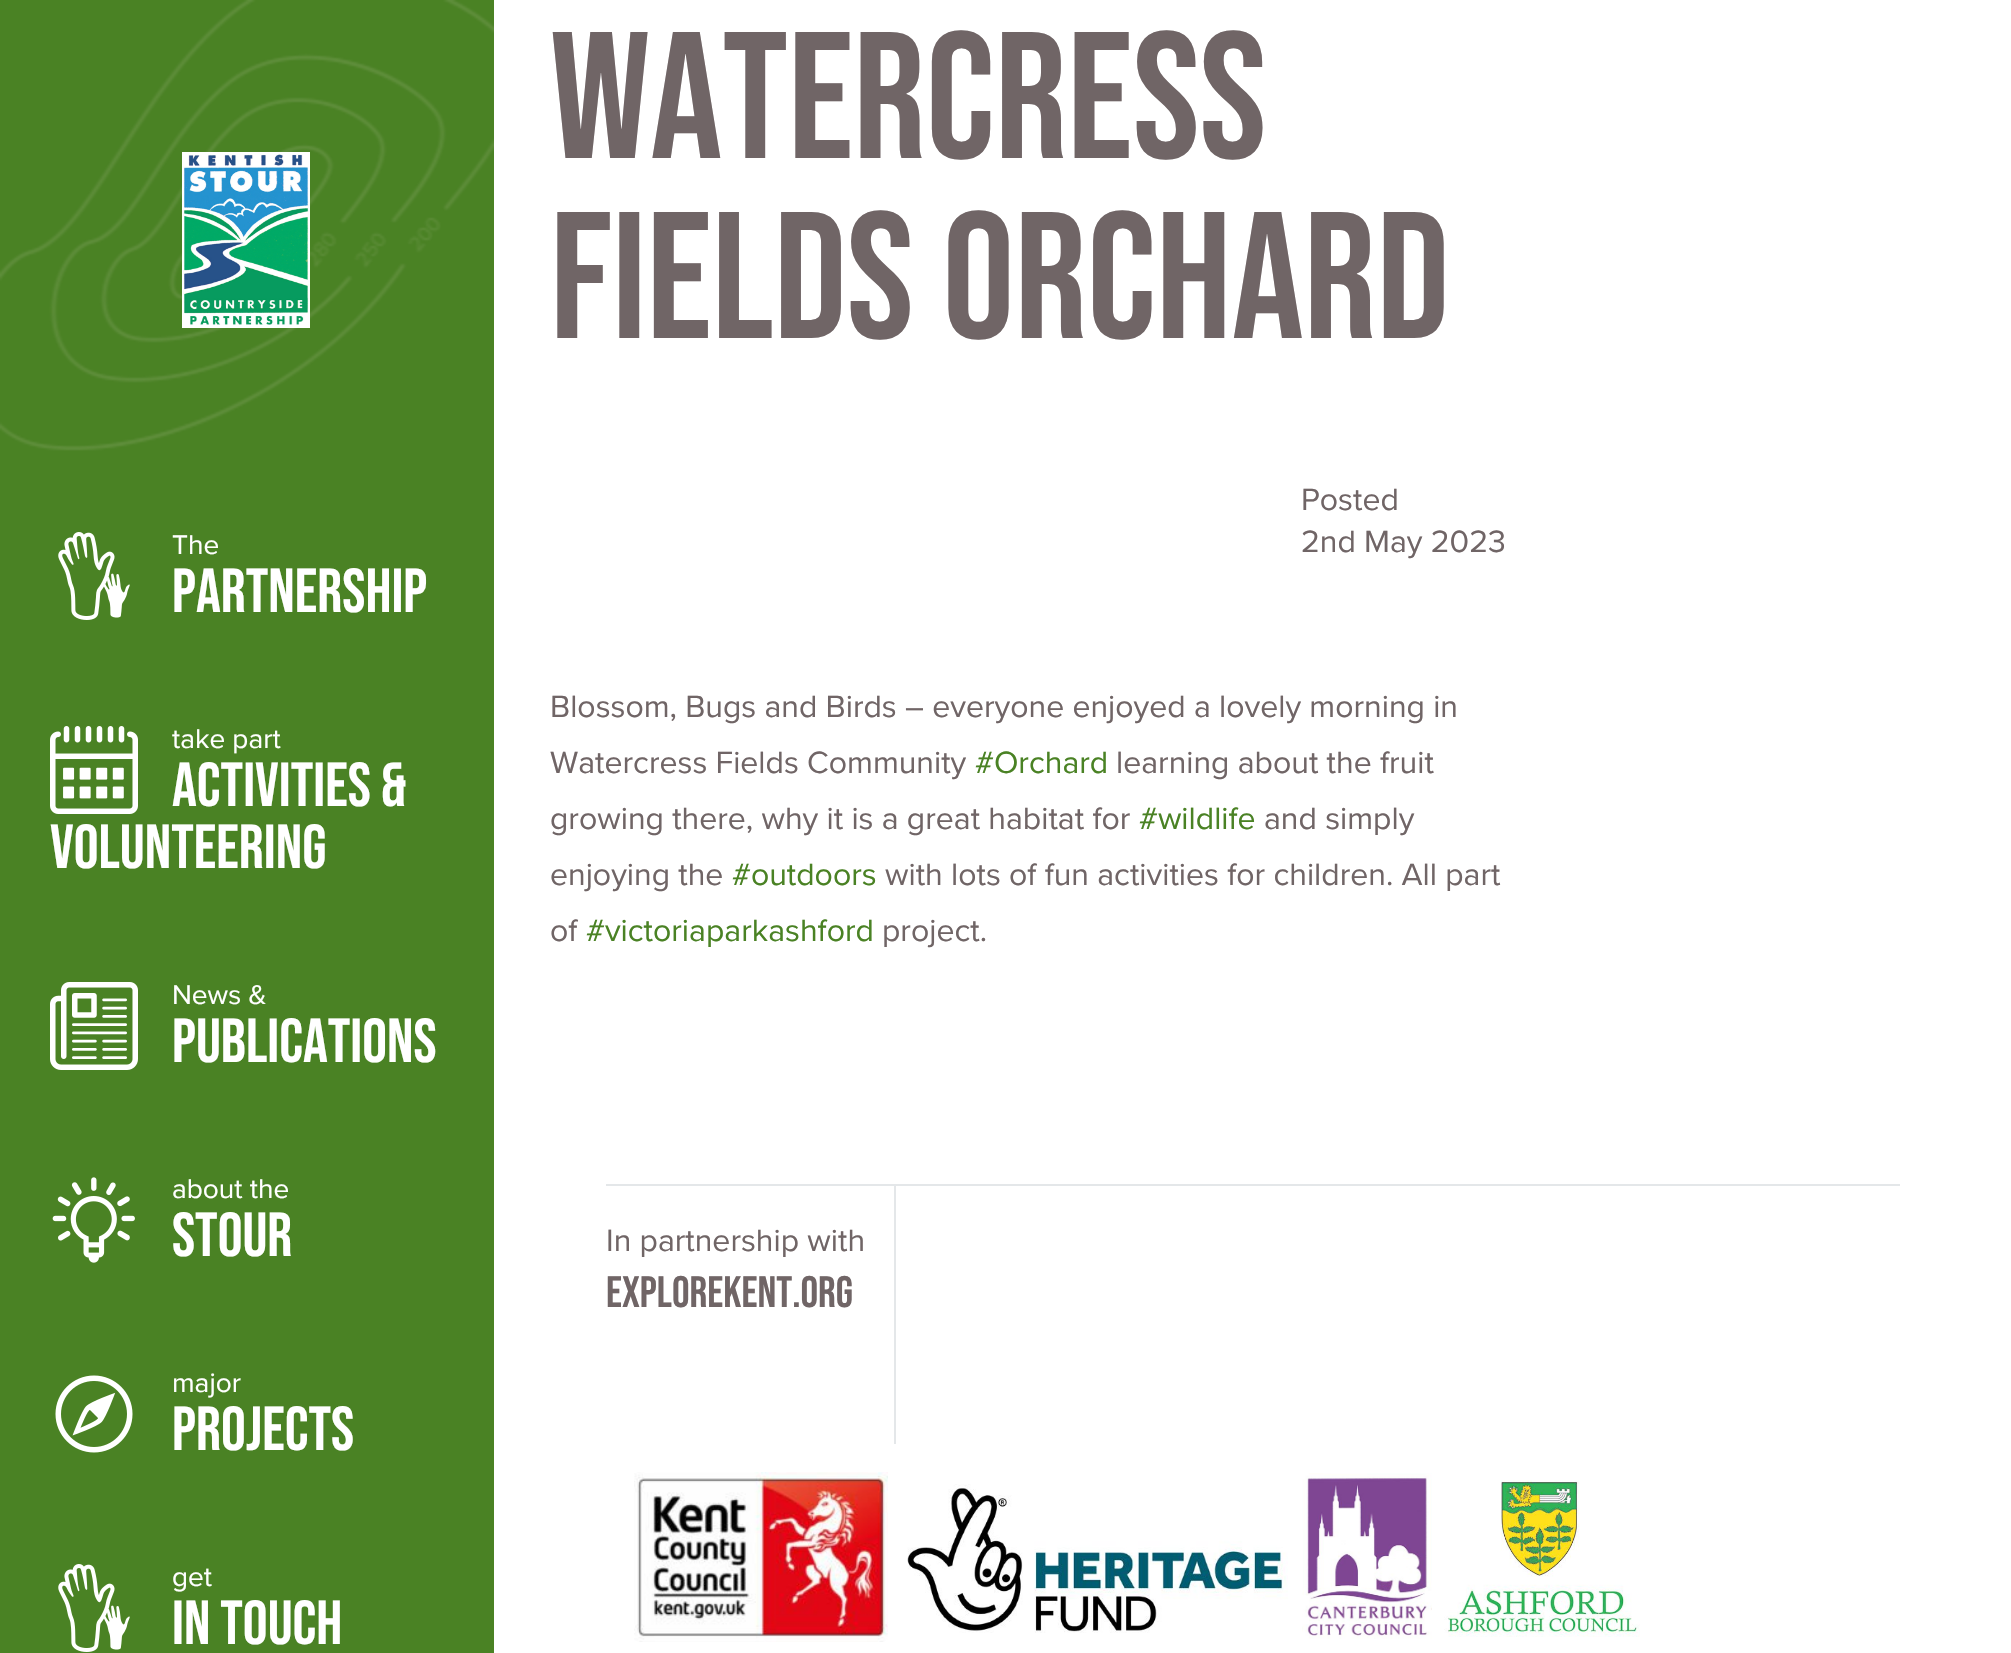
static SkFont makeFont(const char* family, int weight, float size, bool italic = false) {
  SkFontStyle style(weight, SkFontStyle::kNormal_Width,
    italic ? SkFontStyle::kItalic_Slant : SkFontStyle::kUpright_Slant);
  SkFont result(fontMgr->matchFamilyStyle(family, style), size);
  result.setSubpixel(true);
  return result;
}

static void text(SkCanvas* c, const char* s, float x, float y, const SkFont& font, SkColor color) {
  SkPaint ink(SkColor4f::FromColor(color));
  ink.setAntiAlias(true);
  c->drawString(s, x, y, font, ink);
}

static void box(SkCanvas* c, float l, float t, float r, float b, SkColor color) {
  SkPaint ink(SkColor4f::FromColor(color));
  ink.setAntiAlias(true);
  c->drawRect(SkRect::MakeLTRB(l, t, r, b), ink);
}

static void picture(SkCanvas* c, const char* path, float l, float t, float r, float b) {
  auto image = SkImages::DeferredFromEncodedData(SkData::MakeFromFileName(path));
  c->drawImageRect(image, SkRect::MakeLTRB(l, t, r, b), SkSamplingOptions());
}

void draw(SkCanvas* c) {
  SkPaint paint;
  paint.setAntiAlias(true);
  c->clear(0xffffffff);
  box(c, 0, 0, 494, 1653, 0xff4a8224);
  picture(c, "img_01.png", 0, 0, 494, 451);
  picture(c, "img_02.png", 182, 152, 310, 328);
  picture(c, "img_03.png", 58, 532, 130, 620);
  SkFont face1 = makeFont("Proxima Nova", 400, 28);
  text(c, "The", 172, 554, face1, 0xffffffff);
  SkFont face2 = makeFont("Bebas Neue", 400, 62);
  text(c, "PARTNERSHIP", 172, 612, face2, 0xffffffff);
  picture(c, "img_04.png", 50, 726, 138, 814);
  text(c, "take part", 172, 748, face1, 0xffffffff);
  text(c, "ACTIVITIES &", 172, 806, face2, 0xffffffff);
  text(c, "VOLUNTEERING", 50, 868, face2, 0xffffffff);
  picture(c, "img_05.png", 50, 982, 138, 1070);
  text(c, "News &", 172, 1004, face1, 0xffffffff);
  text(c, "PUBLICATIONS", 172, 1062, face2, 0xffffffff);
  picture(c, "img_06.png", 52, 1177, 135, 1263);
  text(c, "about the", 172, 1198, face1, 0xffffffff);
  text(c, "STOUR", 172, 1256, face2, 0xffffffff);
  picture(c, "img_07.png", 55, 1375, 133, 1453);
  text(c, "major", 172, 1392, face1, 0xffffffff);
  text(c, "PROJECTS", 172, 1450, face2, 0xffffffff);
  picture(c, "img_03.png", 58, 1564, 130, 1652);
  text(c, "get", 172, 1586, face1, 0xffffffff);
  text(c, "IN TOUCH", 172, 1644, face2, 0xffffffff);
  SkFont face3 = makeFont("Bebas Neue", 400, 180);
  text(c, "Watercress", 550, 158, face3, 0xff706566);
  text(c, "Fields Orchard", 550, 338, face3, 0xff706566);
  SkFont face4 = makeFont("Proxima Nova", 400, 32);
  text(c, "Posted", 1301, 510, face4, 0xff706566);
  text(c, "2nd May 2023", 1301, 552, face4, 0xff706566);
  text(c, "Blossom, Bugs and Birds – everyone enjoyed a lovely morning in", 550, 717, face4, 0xff706566);
  text(c, "Watercress Fields Community", 550, 773, face4, 0xff706566);
  text(c, "#Orchard", 975, 773, face4, 0xff4a8224);
  text(c, "learning about the fruit", 1116, 773, face4, 0xff706566);
  text(c, "growing there, why it is a great habitat for", 550, 829, face4, 0xff706566);
  text(c, "#wildlife", 1139, 829, face4, 0xff4a8224);
  text(c, "and simply", 1264, 829, face4, 0xff706566);
  text(c, "enjoying the", 550, 885, face4, 0xff706566);
  text(c, "#outdoors", 732, 885, face4, 0xff4a8224);
  text(c, "with lots of fun activities for children. All part", 885, 885, face4, 0xff706566);
  text(c, "of", 550, 941, face4, 0xff706566);
  text(c, "#victoriaparkashford", 586, 941, face4, 0xff4a8224);
  text(c, "project.", 882, 941, face4, 0xff706566);
  box(c, 606, 1184, 1900, 1186, 0xffe4e7e9);
  box(c, 894, 1186, 896, 1444, 0xffe4e7e9);
  text(c, "In partnership with", 606, 1251, face4, 0xff706566);
  SkFont face5 = makeFont("Bebas Neue", 400, 44);
  text(c, "EXPLOREKENT.ORG", 606, 1307, face5, 0xff706566);
  picture(c, "img_08.png", 634, 1472, 888, 1642);
  picture(c, "img_09.png", 907, 1484, 1288, 1633);
  picture(c, "img_10.png", 1302, 1473, 1432, 1639);
  picture(c, "img_11.png", 1444, 1480, 1640, 1637);
}
